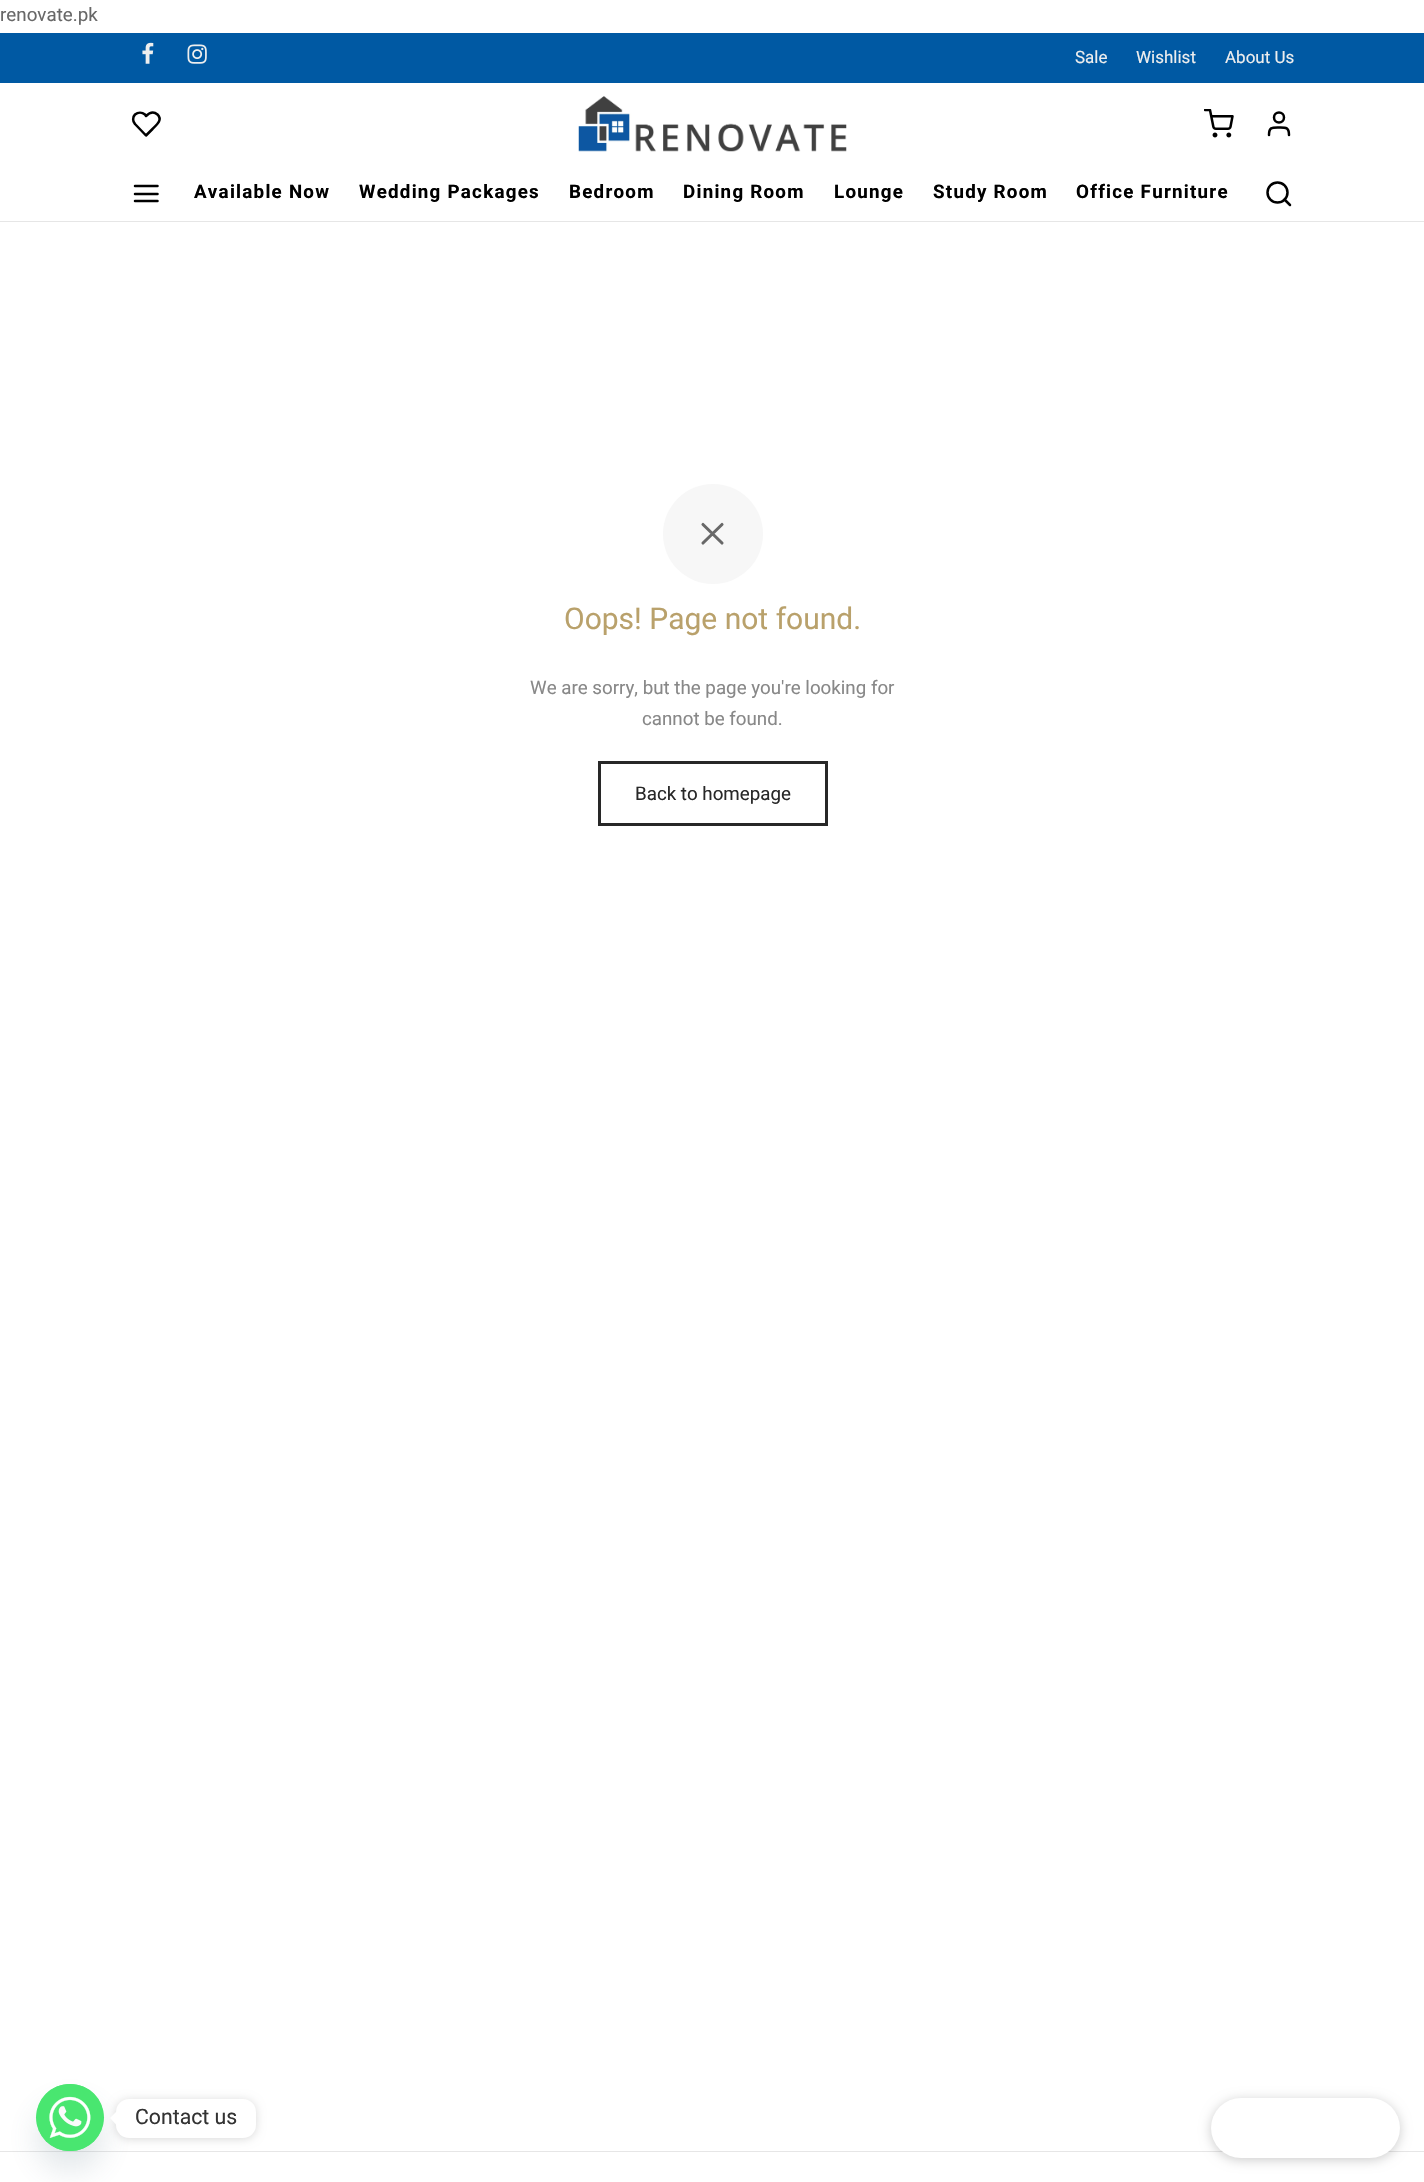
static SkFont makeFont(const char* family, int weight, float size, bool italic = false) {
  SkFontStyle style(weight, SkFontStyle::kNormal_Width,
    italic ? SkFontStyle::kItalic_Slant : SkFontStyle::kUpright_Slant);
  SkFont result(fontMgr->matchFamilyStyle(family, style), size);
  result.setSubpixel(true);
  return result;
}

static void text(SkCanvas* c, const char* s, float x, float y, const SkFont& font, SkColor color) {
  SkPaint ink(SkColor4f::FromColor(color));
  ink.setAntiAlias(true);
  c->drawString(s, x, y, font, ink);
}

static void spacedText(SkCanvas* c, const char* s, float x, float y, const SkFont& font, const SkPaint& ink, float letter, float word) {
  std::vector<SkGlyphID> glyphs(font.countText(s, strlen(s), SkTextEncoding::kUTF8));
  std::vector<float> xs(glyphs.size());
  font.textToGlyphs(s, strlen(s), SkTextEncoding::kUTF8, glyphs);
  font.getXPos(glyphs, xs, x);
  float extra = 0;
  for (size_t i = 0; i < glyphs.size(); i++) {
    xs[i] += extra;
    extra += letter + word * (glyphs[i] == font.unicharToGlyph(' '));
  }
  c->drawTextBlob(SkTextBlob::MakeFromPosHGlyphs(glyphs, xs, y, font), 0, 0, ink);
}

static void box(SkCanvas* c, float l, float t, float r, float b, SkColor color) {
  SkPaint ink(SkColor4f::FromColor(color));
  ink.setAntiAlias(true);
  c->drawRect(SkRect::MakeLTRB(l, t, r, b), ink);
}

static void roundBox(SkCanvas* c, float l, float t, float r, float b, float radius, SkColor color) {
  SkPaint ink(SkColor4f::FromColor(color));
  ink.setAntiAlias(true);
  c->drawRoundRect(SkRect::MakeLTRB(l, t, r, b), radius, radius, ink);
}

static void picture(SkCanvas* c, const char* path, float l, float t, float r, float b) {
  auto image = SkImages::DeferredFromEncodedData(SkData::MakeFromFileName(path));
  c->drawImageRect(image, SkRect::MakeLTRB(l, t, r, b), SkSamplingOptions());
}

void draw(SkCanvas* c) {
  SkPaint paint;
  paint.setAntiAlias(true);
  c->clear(0xffffffff);
  SkFont face1 = makeFont("Roboto", 400, 18.75f);
  text(c, "renovate.pk", 0, 21, face1, 0xff686868);
  box(c, 0, 33, 1424, 83, 0xff0059a3);
  picture(c, "img_01.png", 142, 42, 154, 64);
  picture(c, "img_02.png", 187, 44, 207, 64);
  SkFont face2 = makeFont("Roboto", 400, 17);
  text(c, "Sale", 1075, 63, face2, 0xffeeeeee);
  text(c, "Wishlist", 1136, 63, face2, 0xffeeeeee);
  text(c, "About Us", 1225, 63, face2, 0xffeeeeee);
  paint.setStyle(SkPaint::kStroke_Style);
  paint.setStrokeWidth(2.5f);
  paint.setStrokeCap(SkPaint::kRound_Cap);
  paint.setStrokeJoin(SkPaint::kRound_Join);
  paint.setColor(0xff000000);
  c->drawPath(SkPathBuilder().moveTo(157.5f, 114.5f).cubicTo(153.5f, 111, 149.5f, 112.5f, 146, 116).lineTo(145, 114.5f).cubicTo(142, 112, 138, 112, 135, 114.5f).cubicTo(132.5f, 117, 132.5f, 121.5f, 135, 124).lineTo(146, 135.5f).lineTo(152.5f, 129).cubicTo(156.5f, 125, 163, 120, 157.5f, 114.5f).close().detach(), paint);
  picture(c, "img_03.png", 578, 96, 847, 152);
  picture(c, "img_04.png", 1204, 109, 1234, 138);
  c->drawPath(SkPathBuilder().moveTo(1289, 135).cubicTo(1289, 127, 1285.5f, 127.5f, 1279, 127.5f).cubicTo(1272, 127.5f, 1269, 127, 1269, 135).detach(), paint);
  paint.setStrokeCap(SkPaint::kButt_Cap);
  paint.setStrokeJoin(SkPaint::kMiter_Join);
  c->drawCircle(1279, 117.5f, 5, paint);
  paint.setStrokeCap(SkPaint::kRound_Cap);
  paint.setStrokeJoin(SkPaint::kRound_Join);
  c->drawPath(SkPathBuilder().moveTo(135, 194).lineTo(157.5f, 194).moveTo(135, 186).lineTo(157.5f, 186).moveTo(135, 201).lineTo(157.5f, 201).detach(), paint);
  SkFont face3 = makeFont("Roboto", 700, 18.75f);
  paint.setStyle(SkPaint::kFill_Style);
  spacedText(c, "Available Now", 194, 198, face3, paint, 1.25f, 0);
  spacedText(c, "Wedding Packages", 359, 198, face3, paint, 1.25f, 0);
  spacedText(c, "Bedroom", 569, 198, face3, paint, 1.25f, 0);
  spacedText(c, "Dining Room", 683, 198, face3, paint, 1.25f, 0);
  spacedText(c, "Lounge", 834, 198, face3, paint, 1.25f, 0);
  spacedText(c, "Study Room", 933, 198, face3, paint, 1.25f, 0);
  spacedText(c, "Office Furniture", 1076, 198, face3, paint, 1.25f, 0);
  paint.setStyle(SkPaint::kStroke_Style);
  paint.setStrokeCap(SkPaint::kButt_Cap);
  paint.setStrokeJoin(SkPaint::kMiter_Join);
  c->drawCircle(1277.5f, 192.5f, 10, paint);
  paint.setStrokeCap(SkPaint::kRound_Cap);
  paint.setStrokeJoin(SkPaint::kRound_Join);
  c->drawPath(SkPathBuilder().moveTo(1290, 205).lineTo(1284.5f, 199.5f).detach(), paint);
  box(c, 0, 221, 1424, 222, 0xffe6e6e6);
  paint.setStyle(SkPaint::kFill_Style);
  paint.setColor(0xfff7f7f7);
  c->drawCircle(713, 534, 50, paint);
  paint.setStyle(SkPaint::kStroke_Style);
  paint.setStrokeWidth(3.1f);
  paint.setColor(0xff686868);
  c->drawPath(SkPathBuilder().moveTo(722, 524.5f).lineTo(703, 543).moveTo(703, 524.5f).lineTo(722, 543).detach(), paint);
  SkFont face4 = makeFont("Roboto", 400, 30);
  text(c, "Oops! Page not found.", 564, 629, face4, 0xffb9a16b);
  text(c, "We are sorry, but the page you're looking for", 530, 694, face1, 0xff888888);
  text(c, "cannot be found.", 642, 725, face1, 0xff888888);
  paint.setStrokeWidth(3);
  paint.setStrokeCap(SkPaint::kButt_Cap);
  paint.setStrokeJoin(SkPaint::kMiter_Join);
  paint.setColor(0xff282828);
  c->drawRect(SkRect::MakeLTRB(599.5f, 762.5f, 826.5f, 824.5f), paint);
  text(c, "Back to homepage", 635, 800, face1, 0xff282828);
  box(c, 0, 2151, 1424, 2152, 0xffe6e6e6);
  paint.setStyle(SkPaint::kFill_Style);
  paint.setColor(0x2949687e);
  paint.setMaskFilter(SkMaskFilter::MakeBlur(kNormal_SkBlurStyle, 15));
  c->drawRoundRect(SkRect::MakeLTRB(36, 2104, 104, 2171), 33.5f, 33.5f, paint);
  paint.setMaskFilter(nullptr);
  roundBox(c, 36, 2084, 104, 2151, 33.5f, 0xff49e670);
  picture(c, "img_05.png", 36, 2084, 104, 2151);
  paint.setColor(0x26000000);
  paint.setMaskFilter(SkMaskFilter::MakeBlur(kNormal_SkBlurStyle, 5));
  c->drawRoundRect(SkRect::MakeLTRB(116, 2100, 256, 2139), 13, 13, paint);
  paint.setMaskFilter(nullptr);
  roundBox(c, 116, 2099, 256, 2138, 13, 0xffffffff);
  paint.setColor(0xffffffff);
  c->drawPath(SkPathBuilder().moveTo(116, 2112).lineTo(116, 2124.5f).lineTo(110, 2118).close().detach(), paint);
  SkFont face5 = makeFont("Roboto", 400, 21.25f);
  text(c, "Contact us", 135, 2124, face5, 0xff333333);
  paint.setColor(0x33000000);
  paint.setMaskFilter(SkMaskFilter::MakeBlur(kNormal_SkBlurStyle, 6));
  c->drawRoundRect(SkRect::MakeLTRB(1211, 2100, 1400, 2160), 30, 30, paint);
  paint.setMaskFilter(nullptr);
  roundBox(c, 1211, 2098, 1400, 2158, 30, 0xffffffff);
}
